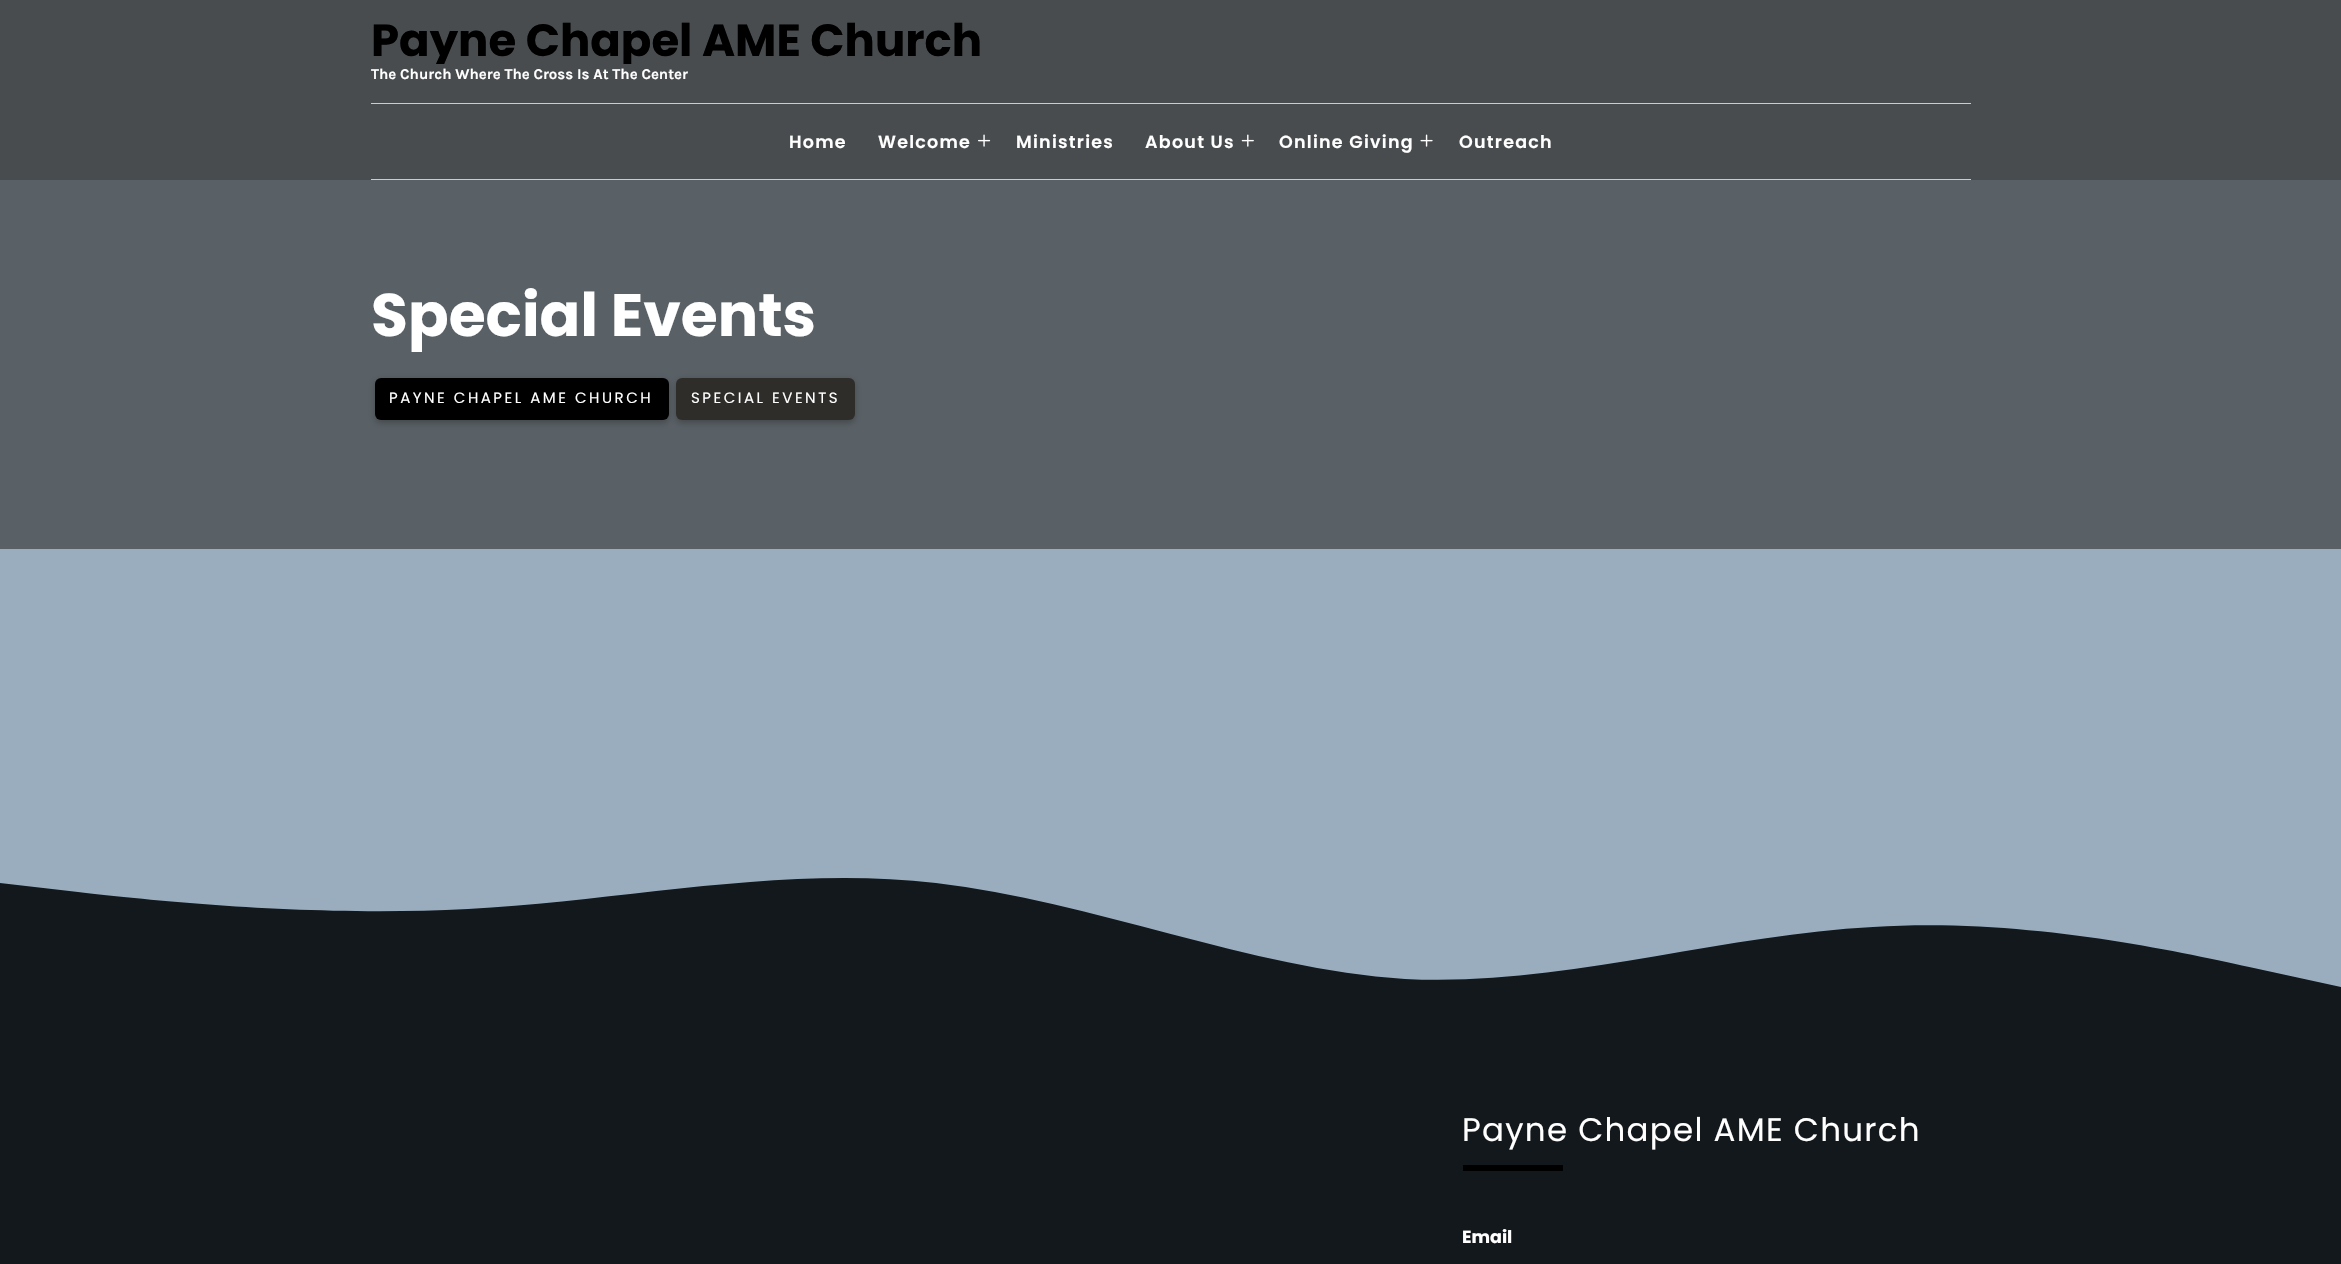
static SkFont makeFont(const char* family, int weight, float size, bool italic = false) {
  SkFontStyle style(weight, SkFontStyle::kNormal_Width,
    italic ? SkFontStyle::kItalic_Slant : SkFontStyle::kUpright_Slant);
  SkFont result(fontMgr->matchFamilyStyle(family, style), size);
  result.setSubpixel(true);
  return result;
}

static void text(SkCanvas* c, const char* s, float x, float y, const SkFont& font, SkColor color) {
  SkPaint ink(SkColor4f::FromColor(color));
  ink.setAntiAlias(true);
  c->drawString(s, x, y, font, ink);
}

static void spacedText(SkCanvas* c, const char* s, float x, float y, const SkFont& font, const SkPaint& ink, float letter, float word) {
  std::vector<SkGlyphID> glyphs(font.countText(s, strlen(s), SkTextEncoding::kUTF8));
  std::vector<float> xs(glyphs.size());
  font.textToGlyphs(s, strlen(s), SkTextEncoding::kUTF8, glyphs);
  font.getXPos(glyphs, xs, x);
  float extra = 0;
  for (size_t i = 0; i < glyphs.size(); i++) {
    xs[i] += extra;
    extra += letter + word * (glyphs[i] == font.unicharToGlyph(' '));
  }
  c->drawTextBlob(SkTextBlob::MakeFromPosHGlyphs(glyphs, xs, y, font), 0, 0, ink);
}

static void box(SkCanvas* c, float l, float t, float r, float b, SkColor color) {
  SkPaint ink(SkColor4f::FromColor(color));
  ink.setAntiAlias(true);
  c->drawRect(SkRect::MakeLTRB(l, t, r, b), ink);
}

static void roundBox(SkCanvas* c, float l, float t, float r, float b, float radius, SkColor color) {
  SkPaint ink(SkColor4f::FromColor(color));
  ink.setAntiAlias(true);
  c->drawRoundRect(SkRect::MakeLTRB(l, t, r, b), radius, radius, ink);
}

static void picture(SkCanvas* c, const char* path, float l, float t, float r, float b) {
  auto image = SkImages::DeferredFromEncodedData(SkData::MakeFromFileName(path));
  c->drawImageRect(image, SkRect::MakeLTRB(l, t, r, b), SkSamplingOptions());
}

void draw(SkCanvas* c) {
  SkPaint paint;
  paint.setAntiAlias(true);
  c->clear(0xff9aadbf);
  box(c, 0, 0, 2341, 180, 0xff484c4e);
  c->save();
  c->clipRect(SkRect::MakeLTRB(371, 19, 981, 64));
  SkFont face1 = makeFont("Poppins", 700, 45);
  text(c, "Payne Chapel AME Church", 371, 56, face1, 0xff000000);
  c->restore();
  SkFont face2 = makeFont("Karla", 700, 15);
  text(c, "The Church Where The Cross Is At The Center", 371, 79, face2, 0xffffffff);
  box(c, 371, 103, 1971, 104, 0xffcccccc);
  box(c, 371, 179, 1971, 180, 0xffcccccc);
  SkFont face3 = makeFont("Poppins", 600, 17.5f);
  paint.setColor(0xffffffff);
  spacedText(c, "Home", 789, 148, face3, paint, 1.25f, 0);
  spacedText(c, "Welcome", 878, 148, face3, paint, 1.25f, 0);
  picture(c, "img_01.png", 978, 134, 991, 147);
  spacedText(c, "Ministries", 1016, 148, face3, paint, 1.25f, 0);
  spacedText(c, "About Us", 1145, 148, face3, paint, 1.25f, 0);
  picture(c, "img_02.png", 1241, 134, 1254, 147);
  spacedText(c, "Online Giving", 1279, 148, face3, paint, 1.25f, 0);
  picture(c, "img_03.png", 1420, 134, 1433, 147);
  spacedText(c, "Outreach", 1459, 148, face3, paint, 1.25f, 0);
  box(c, 0, 180, 2341, 549, 0xff5a6166);
  SkFont face4 = makeFont("Poppins", 700, 60);
  text(c, "Special Events", 371, 336, face4, 0xffffffff);
  paint.setColor(0x42000000);
  paint.setMaskFilter(SkMaskFilter::MakeBlur(kNormal_SkBlurStyle, 3));
  c->drawRoundRect(SkRect::MakeLTRB(375, 380, 669, 423), 6, 6, paint);
  paint.setMaskFilter(nullptr);
  roundBox(c, 375, 378, 669, 420, 6, 0xff000000);
  SkFont face5 = makeFont("Poppins", 400, 15);
  paint.setColor(0xffffffff);
  spacedText(c, "PAYNE CHAPEL AME CHURCH", 389, 403, face5, paint, 2.5f, 0);
  paint.setColor(0x42000000);
  paint.setMaskFilter(SkMaskFilter::MakeBlur(kNormal_SkBlurStyle, 3));
  c->drawRoundRect(SkRect::MakeLTRB(676, 380, 855, 423), 6, 6, paint);
  paint.setMaskFilter(nullptr);
  roundBox(c, 676, 378, 855, 420, 6, 0xff2e2d2a);
  paint.setColor(0xffffffff);
  spacedText(c, "SPECIAL EVENTS", 691, 403, face5, paint, 2.5f, 0);
  box(c, 0, 1091, 2341, 1264, 0xff13181c);
  paint.setColor(0xff13181c);
  c->drawPath(SkPathBuilder().moveTo(0, 883).lineTo(78, 892).cubicTo(156, 901, 312, 917, 468, 909).cubicTo(624, 901, 780, 865, 936, 883).cubicTo(1093, 901, 1249, 969, 1405, 979).cubicTo(1561, 987, 1717, 935, 1873, 927).cubicTo(2029, 917, 2185, 953, 2263, 970).lineTo(2341, 987).lineTo(2341, 1091).lineTo(0, 1091).close().detach(), paint);
  SkFont face6 = makeFont("Poppins", 400, 32.5f);
  paint.setColor(0xffffffff);
  spacedText(c, "Payne Chapel AME Church", 1462, 1141, face6, paint, 1.25f, 0);
  box(c, 1463, 1165, 1563, 1171, 0xff000000);
  SkFont face7 = makeFont("Poppins", 700, 17.5f);
  text(c, "Email", 1462, 1243, face7, 0xffffffff);
}
